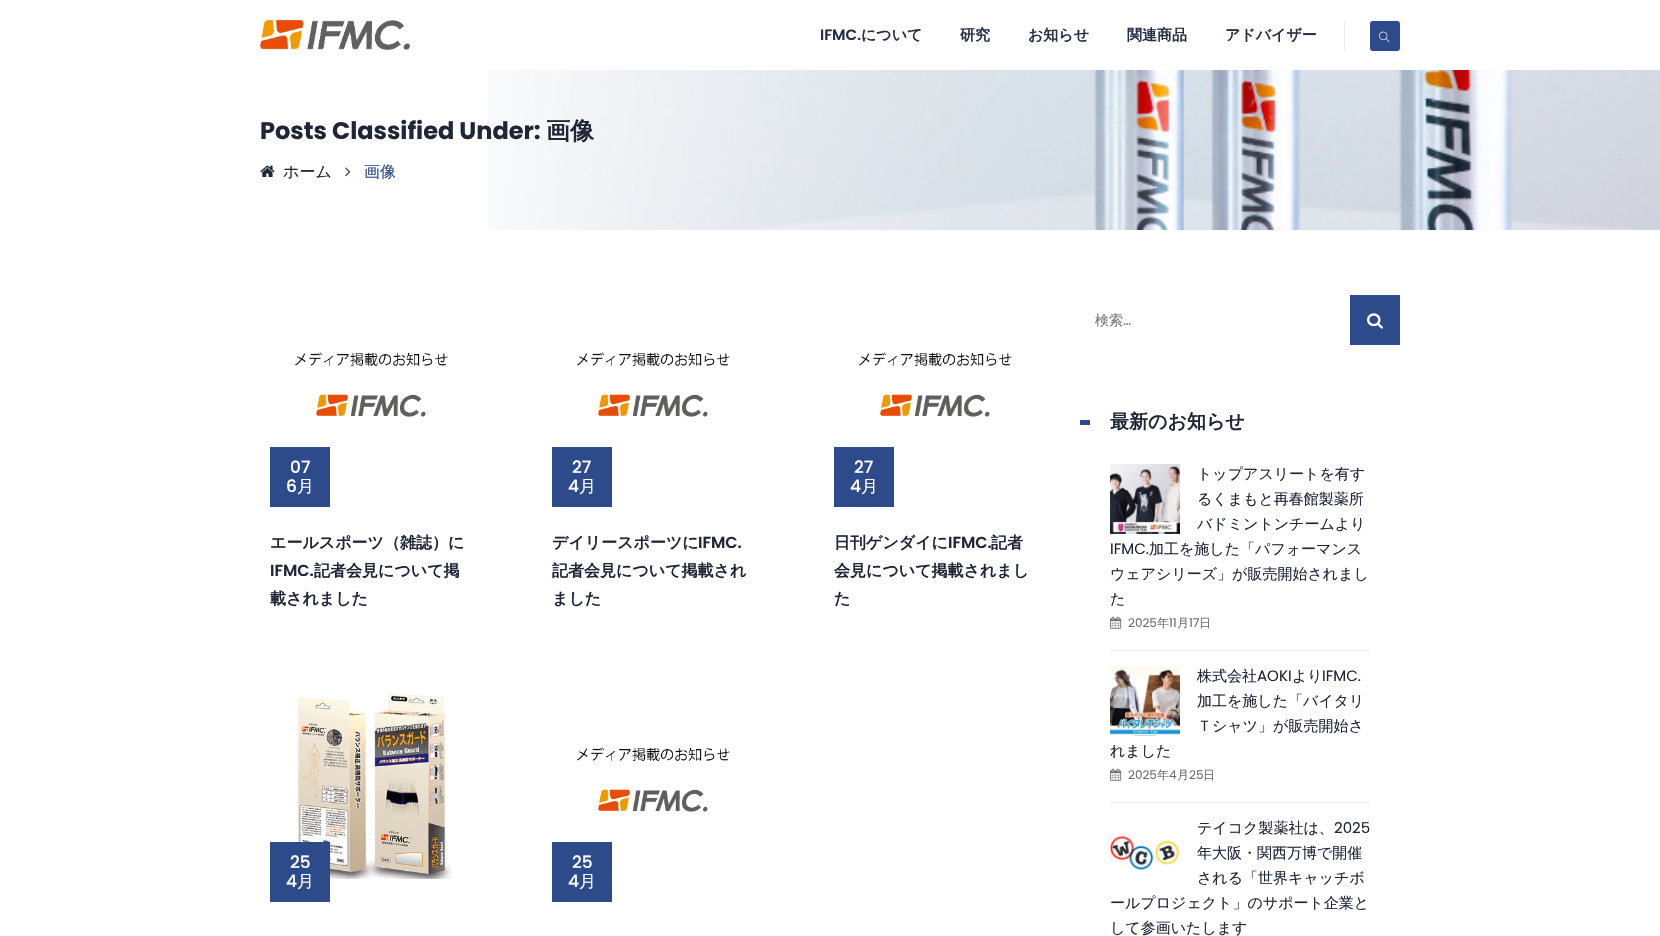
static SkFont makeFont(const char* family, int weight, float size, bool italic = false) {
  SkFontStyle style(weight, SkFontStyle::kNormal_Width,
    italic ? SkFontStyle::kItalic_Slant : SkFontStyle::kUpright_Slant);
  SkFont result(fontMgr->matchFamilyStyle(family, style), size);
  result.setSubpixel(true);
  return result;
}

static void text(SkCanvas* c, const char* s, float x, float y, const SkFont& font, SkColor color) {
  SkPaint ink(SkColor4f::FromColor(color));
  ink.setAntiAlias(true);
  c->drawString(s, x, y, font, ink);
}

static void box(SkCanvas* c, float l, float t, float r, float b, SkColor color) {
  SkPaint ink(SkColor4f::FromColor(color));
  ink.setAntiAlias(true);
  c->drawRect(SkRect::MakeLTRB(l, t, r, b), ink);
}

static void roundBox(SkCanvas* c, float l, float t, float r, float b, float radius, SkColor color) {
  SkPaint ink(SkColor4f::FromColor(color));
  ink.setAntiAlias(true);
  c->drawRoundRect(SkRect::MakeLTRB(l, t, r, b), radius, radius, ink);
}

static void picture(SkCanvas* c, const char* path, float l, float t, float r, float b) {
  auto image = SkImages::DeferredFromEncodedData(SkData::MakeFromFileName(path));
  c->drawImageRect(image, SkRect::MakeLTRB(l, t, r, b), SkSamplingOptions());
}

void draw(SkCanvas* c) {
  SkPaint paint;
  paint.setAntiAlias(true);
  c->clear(0xffffffff);
  picture(c, "img_01.png", 260, 20, 410, 50);
  SkFont face1 = makeFont("Poppins", 600, 15);
  text(c, "IFMC.", 820, 40, face1, 0xff263045);
  SkFont face2 = makeFont("WenQuanYi Zen Hei", 700, 15);
  text(c, "について", 861, 40, face2, 0xff263045);
  text(c, "研究", 960, 40, face2, 0xff263045);
  text(c, "お知らせ", 1028, 40, face2, 0xff263045);
  text(c, "関連商品", 1127, 40, face2, 0xff263045);
  text(c, "アドバイザー", 1225, 40, face2, 0xff263045);
  box(c, 1344, 21, 1345, 51, 0xffebecee);
  roundBox(c, 1370, 21, 1400, 51, 3, 0xff2d4a8a);
  picture(c, "img_02.png", 1379, 31, 1390, 43);
  picture(c, "img_03.png", 488, 70, 1660, 230);
  SkFont face3 = makeFont("Poppins", 700, 24);
  text(c, "Posts Classified Under:", 260, 139, face3, 0xff1e2637);
  SkFont face4 = makeFont("WenQuanYi Zen Hei", 700, 24);
  text(c, "画像", 546, 139, face4, 0xff1e2637);
  picture(c, "img_04.png", 260, 165, 275, 177);
  SkFont face5 = makeFont("WenQuanYi Zen Hei", 500, 16);
  text(c, "ホーム", 283, 177, face5, 0xff1e2637);
  picture(c, "img_05.png", 345, 167, 351, 177);
  text(c, "画像", 364, 177, face5, 0xff2d4a8a);
  picture(c, "img_06.png", 295, 352, 448, 417);
  box(c, 270, 447, 330, 507, 0xff2d4a8a);
  SkFont face6 = makeFont("Poppins", 500, 17);
  text(c, "07", 290, 473, face6, 0xffffffff);
  text(c, "6", 286, 492, face6, 0xffffffff);
  SkFont face7 = makeFont("WenQuanYi Zen Hei", 500, 17);
  text(c, "月", 297, 492, face7, 0xffffffff);
  SkFont face8 = makeFont("WenQuanYi Zen Hei", 700, 16);
  text(c, "エールスポーツ（雑誌）に", 270, 548, face8, 0xff1e2637);
  SkFont face9 = makeFont("Poppins", 600, 16);
  text(c, "IFMC.", 270, 576, face9, 0xff1e2637);
  text(c, "記者会見について掲", 314, 576, face8, 0xff1e2637);
  text(c, "載されました", 270, 604, face8, 0xff1e2637);
  picture(c, "img_07.png", 577, 352, 730, 417);
  box(c, 552, 447, 612, 507, 0xff2d4a8a);
  text(c, "27", 572, 473, face6, 0xffffffff);
  text(c, "4", 568, 492, face6, 0xffffffff);
  text(c, "月", 579, 492, face7, 0xffffffff);
  text(c, "デイリースポーツに", 552, 548, face8, 0xff1e2637);
  text(c, "IFMC.", 698, 548, face9, 0xff1e2637);
  text(c, "記者会見について掲載され", 552, 576, face8, 0xff1e2637);
  text(c, "ました", 552, 604, face8, 0xff1e2637);
  picture(c, "img_08.png", 859, 352, 1012, 417);
  box(c, 834, 447, 894, 507, 0xff2d4a8a);
  text(c, "27", 854, 473, face6, 0xffffffff);
  text(c, "4", 850, 492, face6, 0xffffffff);
  text(c, "月", 861, 492, face7, 0xffffffff);
  text(c, "日刊ゲンダイに", 834, 548, face8, 0xff1e2637);
  text(c, "IFMC.", 948, 548, face9, 0xff1e2637);
  text(c, "記者", 991, 548, face8, 0xff1e2637);
  text(c, "会見について掲載されまし", 834, 576, face8, 0xff1e2637);
  text(c, "た", 834, 604, face8, 0xff1e2637);
  picture(c, "img_09.png", 290, 692, 452, 879);
  box(c, 270, 842, 330, 902, 0xff2d4a8a);
  text(c, "25", 290, 868, face6, 0xffffffff);
  text(c, "4", 286, 887, face6, 0xffffffff);
  text(c, "月", 297, 887, face7, 0xffffffff);
  picture(c, "img_07.png", 577, 747, 730, 812);
  box(c, 552, 842, 612, 902, 0xff2d4a8a);
  text(c, "25", 572, 868, face6, 0xffffffff);
  text(c, "4", 568, 887, face6, 0xffffffff);
  text(c, "月", 579, 887, face7, 0xffffffff);
  SkFont face10 = makeFont("WenQuanYi Zen Hei", 500, 14);
  text(c, "検索", 1095, 325, face10, 0xff757575);
  SkFont face11 = makeFont("Poppins", 400, 14);
  text(c, "…", 1123, 325, face11, 0xff757575);
  box(c, 1350, 295, 1400, 345, 0xff2d4a8a);
  picture(c, "img_10.png", 1367, 313, 1383, 329);
  box(c, 1080, 420, 1090, 425, 0xff2d4a8a);
  SkFont face12 = makeFont("WenQuanYi Zen Hei", 700, 19);
  text(c, "最新のお知らせ", 1110, 428, face12, 0xff1e2637);
  picture(c, "img_11.png", 1110, 464, 1180, 534);
  SkFont face13 = makeFont("WenQuanYi Zen Hei", 500, 15);
  text(c, "トップアスリートを有す", 1197, 479, face13, 0xff1e2637);
  text(c, "るくまもと再春館製薬所", 1197, 504, face13, 0xff1e2637);
  text(c, "バドミントンチームより", 1197, 529, face13, 0xff1e2637);
  SkFont face14 = makeFont("Poppins", 400, 15);
  text(c, "IFMC.", 1110, 554, face14, 0xff1e2637);
  text(c, "加工を施した「パフォーマンス", 1149, 554, face13, 0xff1e2637);
  text(c, "ウェアシリーズ」が販売開始されまし", 1110, 579, face13, 0xff1e2637);
  text(c, "た", 1110, 604, face13, 0xff1e2637);
  picture(c, "img_12.png", 1110, 616, 1122, 629);
  SkFont face15 = makeFont("Poppins", 400, 12);
  text(c, "2025", 1128, 627, face15, 0xff6e6e6e);
  SkFont face16 = makeFont("WenQuanYi Zen Hei", 500, 12);
  text(c, "年", 1157, 627, face16, 0xff6e6e6e);
  text(c, "11", 1169, 627, face15, 0xff6e6e6e);
  text(c, "月", 1177, 627, face16, 0xff6e6e6e);
  text(c, "17", 1189, 627, face15, 0xff6e6e6e);
  text(c, "日", 1199, 627, face16, 0xff6e6e6e);
  box(c, 1110, 650, 1370, 651, 0xfff0f0f0);
  picture(c, "img_13.png", 1110, 666, 1180, 736);
  text(c, "株式会社", 1197, 681, face13, 0xff1e2637);
  text(c, "AOKI", 1257, 681, face14, 0xff1e2637);
  text(c, "より", 1292, 681, face13, 0xff1e2637);
  text(c, "IFMC.", 1322, 681, face14, 0xff1e2637);
  text(c, "加工を施した「バイタリ", 1197, 706, face13, 0xff1e2637);
  text(c, "Ｔシャツ」が販売開始さ", 1197, 731, face13, 0xff1e2637);
  text(c, "れました", 1110, 756, face13, 0xff1e2637);
  picture(c, "img_12.png", 1110, 768, 1122, 781);
  text(c, "2025", 1128, 779, face15, 0xff6e6e6e);
  text(c, "年", 1157, 779, face16, 0xff6e6e6e);
  text(c, "4", 1169, 779, face15, 0xff6e6e6e);
  text(c, "月", 1177, 779, face16, 0xff6e6e6e);
  text(c, "25", 1189, 779, face15, 0xff6e6e6e);
  text(c, "日", 1203, 779, face16, 0xff6e6e6e);
  box(c, 1110, 802, 1370, 803, 0xfff0f0f0);
  text(c, "テイコク製薬社は、", 1197, 833, face13, 0xff1e2637);
  text(c, "2025", 1334, 833, face14, 0xff1e2637);
  text(c, "年大阪・関西万博で開催", 1197, 858, face13, 0xff1e2637);
  text(c, "される「世界キャッチボ", 1197, 883, face13, 0xff1e2637);
  text(c, "ールプロジェクト」のサポート企業と", 1110, 908, face13, 0xff1e2637);
  text(c, "して参画いたします", 1110, 933, face13, 0xff1e2637);
  picture(c, "img_14.png", 1110, 833, 1180, 870);
}
